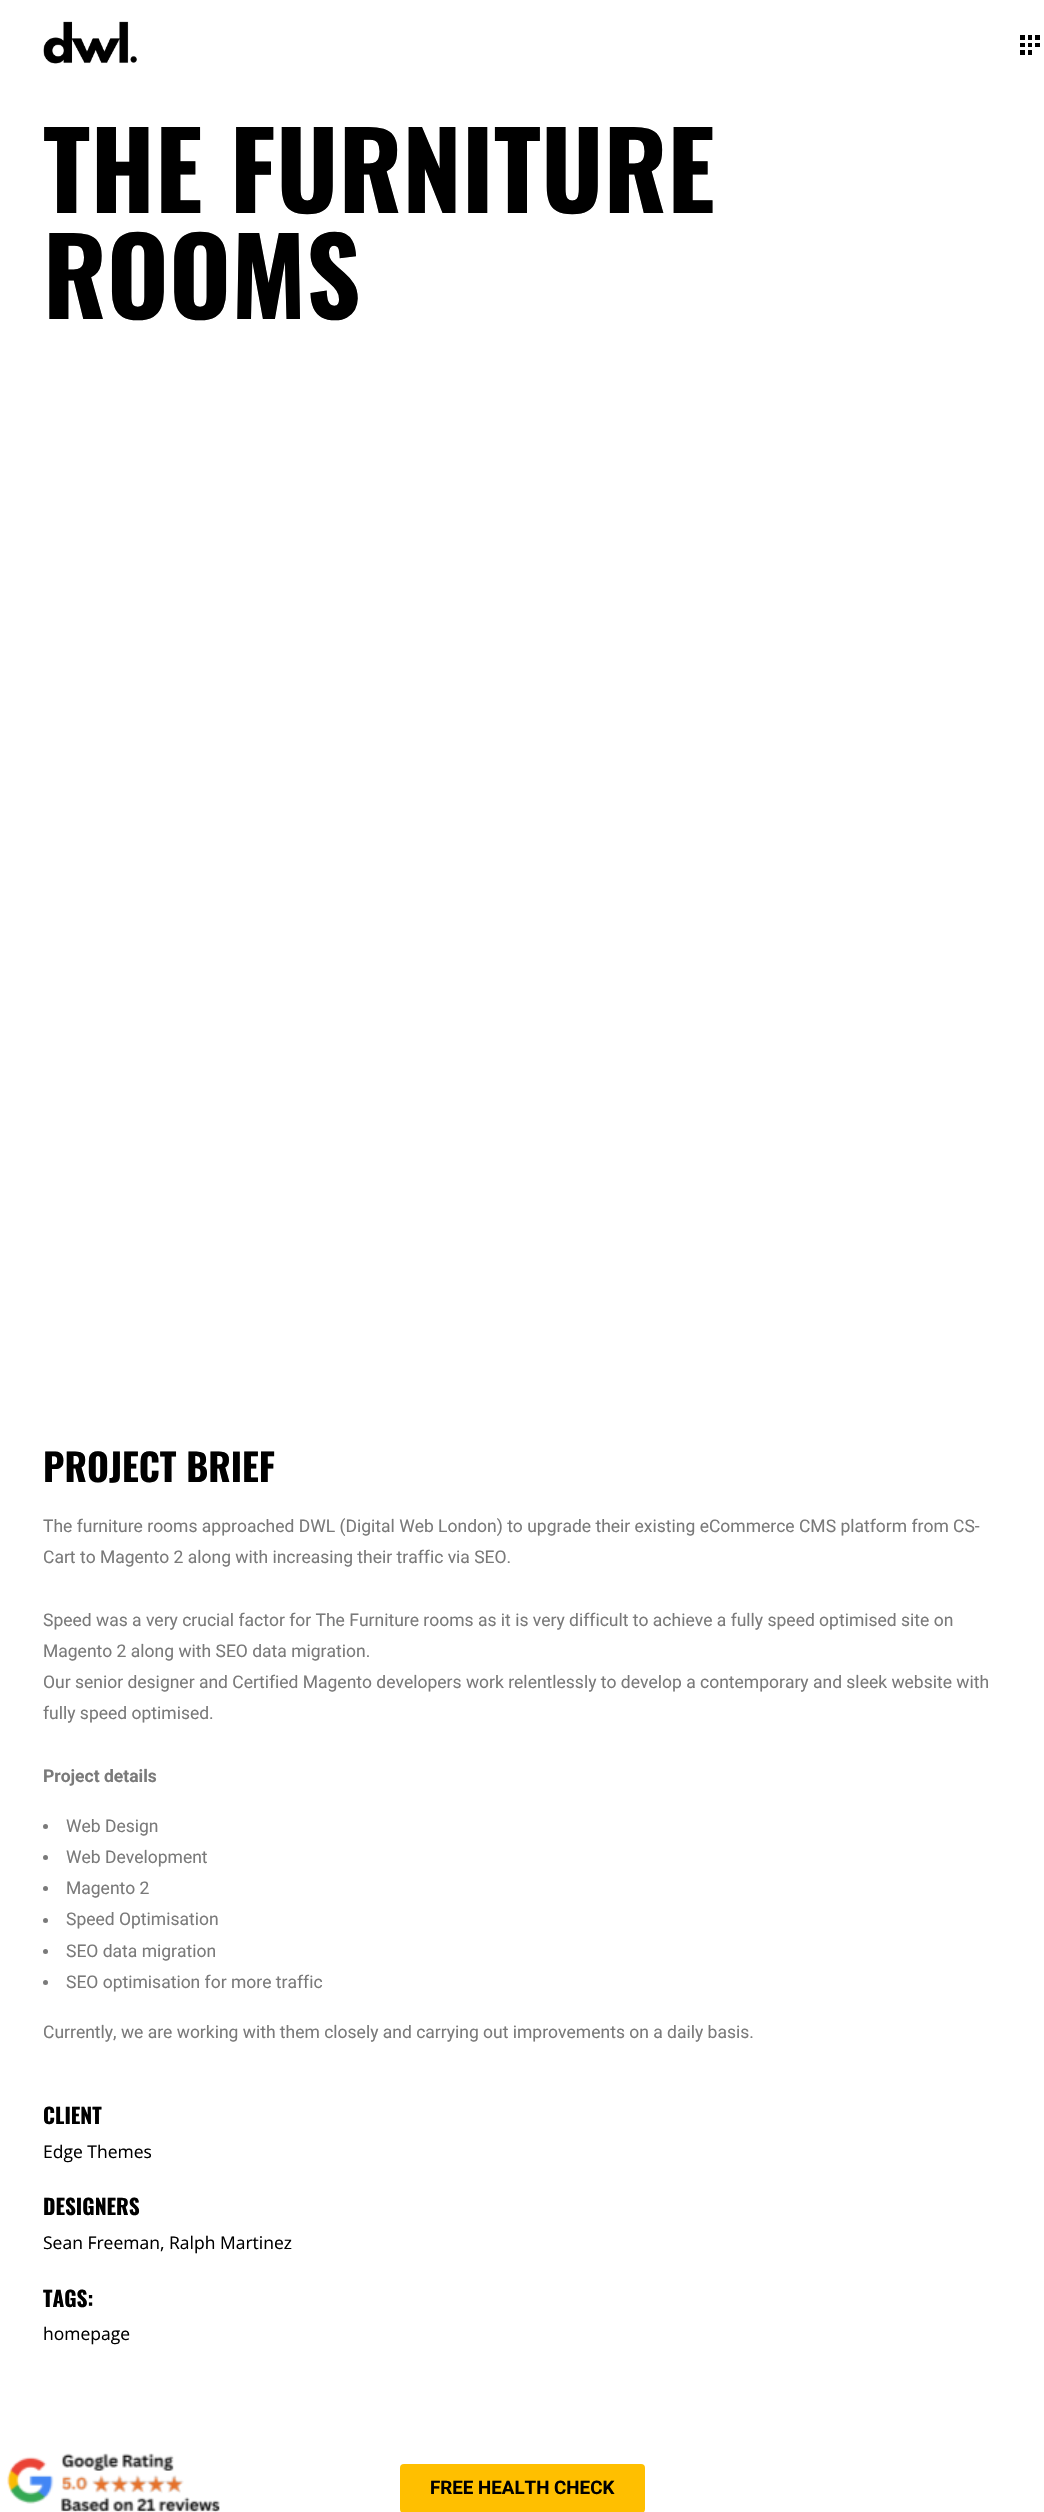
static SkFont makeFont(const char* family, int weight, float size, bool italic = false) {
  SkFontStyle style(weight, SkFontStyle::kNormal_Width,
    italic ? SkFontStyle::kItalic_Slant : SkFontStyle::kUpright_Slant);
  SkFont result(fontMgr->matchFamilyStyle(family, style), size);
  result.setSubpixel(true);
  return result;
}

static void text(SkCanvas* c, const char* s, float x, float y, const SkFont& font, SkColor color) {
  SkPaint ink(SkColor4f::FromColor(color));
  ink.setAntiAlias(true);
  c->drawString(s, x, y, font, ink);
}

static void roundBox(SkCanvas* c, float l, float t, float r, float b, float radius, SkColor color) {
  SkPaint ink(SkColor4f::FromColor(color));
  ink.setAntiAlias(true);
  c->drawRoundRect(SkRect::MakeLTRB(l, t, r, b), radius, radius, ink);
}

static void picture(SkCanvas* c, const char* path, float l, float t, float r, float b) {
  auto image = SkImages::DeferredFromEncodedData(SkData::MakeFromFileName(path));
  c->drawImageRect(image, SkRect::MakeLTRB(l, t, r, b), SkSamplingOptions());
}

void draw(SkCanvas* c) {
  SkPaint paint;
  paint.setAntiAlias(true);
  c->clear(0xffffffff);
  picture(c, "img_01.png", 43, 21, 137, 64);
  picture(c, "img_02.png", 1020, 35, 1040, 55);
  SkFont face1 = makeFont("Oswald", 700, 106.25f);
  text(c, "THE FURNITURE", 43, 213, face1, 0xff000000);
  text(c, "ROOMS", 43, 319, face1, 0xff000000);
  SkFont face2 = makeFont("Oswald", 700, 37.5f);
  text(c, "PROJECT BRIEF", 43, 1482, face2, 0xff000000);
  SkFont face3 = makeFont("Roboto", 400, 17.5f);
  text(c, "The furniture rooms approached DWL (Digital Web London) to upgrade their existing eCommerce CMS platform from CS-", 43, 1532, face3, 0xff7a7a7a);
  text(c, "Cart to Magento 2 along with increasing their traffic via SEO.", 43, 1563, face3, 0xff7a7a7a);
  text(c, "Speed was a very crucial factor for The Furniture rooms as it is very difficult to achieve a fully speed optimised site on", 43, 1626, face3, 0xff7a7a7a);
  text(c, "Magento 2 along with SEO data migration.", 43, 1657, face3, 0xff7a7a7a);
  text(c, "Our senior designer and Certified Magento developers work relentlessly to develop a contemporary and sleek website with", 43, 1688, face3, 0xff7a7a7a);
  text(c, "fully speed optimised.", 43, 1719, face3, 0xff7a7a7a);
  SkFont face4 = makeFont("Roboto", 700, 17.5f);
  text(c, "Project details", 43, 1782, face4, 0xff7a7a7a);
  paint.setColor(0xff7a7a7a);
  c->drawCircle(45.5f, 1826.5f, 2.5f, paint);
  text(c, "Web Design", 66, 1832, face3, 0xff7a7a7a);
  c->drawCircle(45.5f, 1857.5f, 2.5f, paint);
  text(c, "Web Development", 66, 1863, face3, 0xff7a7a7a);
  c->drawCircle(45.5f, 1888.5f, 2.5f, paint);
  text(c, "Magento 2", 66, 1894, face3, 0xff7a7a7a);
  c->drawCircle(45.5f, 1920.5f, 2.5f, paint);
  text(c, "Speed Optimisation", 66, 1925, face3, 0xff7a7a7a);
  c->drawCircle(45.5f, 1951.5f, 2.5f, paint);
  text(c, "SEO data migration", 66, 1957, face3, 0xff7a7a7a);
  c->drawCircle(45.5f, 1982.5f, 2.5f, paint);
  text(c, "SEO optimisation for more traffic", 66, 1988, face3, 0xff7a7a7a);
  text(c, "Currently, we are working with them closely and carrying out improvements on a daily basis.", 43, 2038, face3, 0xff7a7a7a);
  SkFont face5 = makeFont("Oswald", 700, 21.25f);
  text(c, "CLIENT", 43, 2124, face5, 0xff000000);
  SkFont face6 = makeFont("Open Sans", 400, 17.5f);
  text(c, "Edge Themes", 43, 2158, face6, 0xff000000);
  text(c, "DESIGNERS", 43, 2215, face5, 0xff000000);
  text(c, "Sean Freeman, Ralph Martinez", 43, 2249, face6, 0xff000000);
  text(c, "TAGS:", 43, 2307, face5, 0xff000000);
  text(c, "homepage", 43, 2340, face6, 0xff000000);
  picture(c, "img_03.png", 7, 2453, 220, 2512);
  roundBox(c, 400, 2464, 645, 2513, 4, 0xffffbf00);
  SkFont face7 = makeFont("Roboto", 700, 18.75f);
  text(c, "FREE HEALTH CHECK", 430, 2494, face7, 0xff000000);
}
